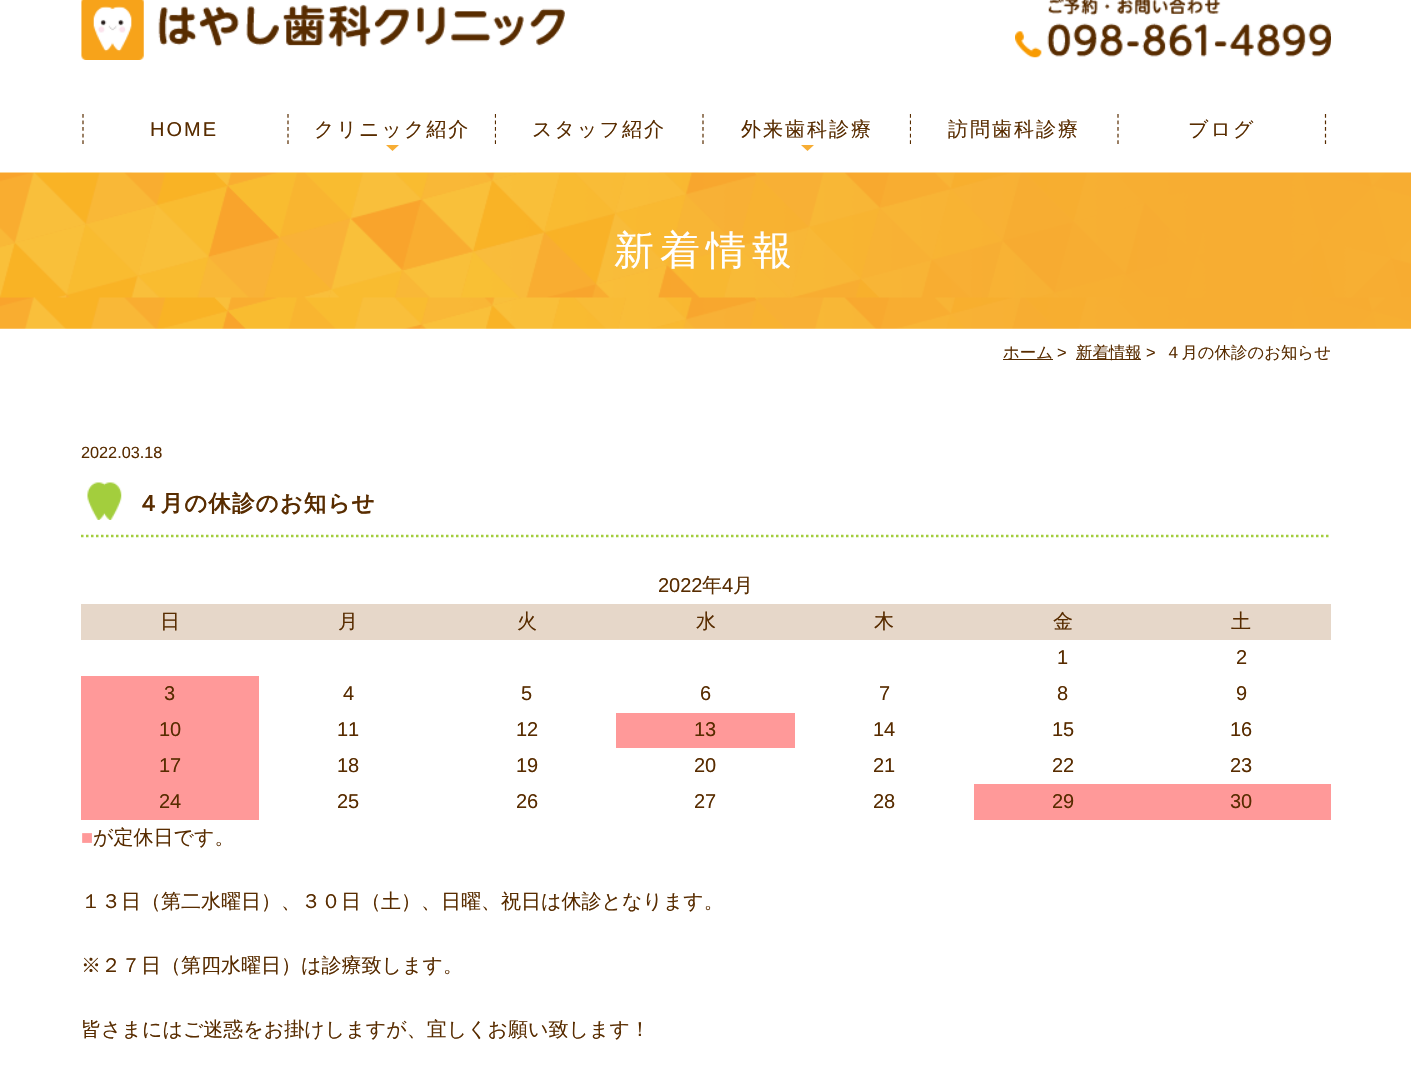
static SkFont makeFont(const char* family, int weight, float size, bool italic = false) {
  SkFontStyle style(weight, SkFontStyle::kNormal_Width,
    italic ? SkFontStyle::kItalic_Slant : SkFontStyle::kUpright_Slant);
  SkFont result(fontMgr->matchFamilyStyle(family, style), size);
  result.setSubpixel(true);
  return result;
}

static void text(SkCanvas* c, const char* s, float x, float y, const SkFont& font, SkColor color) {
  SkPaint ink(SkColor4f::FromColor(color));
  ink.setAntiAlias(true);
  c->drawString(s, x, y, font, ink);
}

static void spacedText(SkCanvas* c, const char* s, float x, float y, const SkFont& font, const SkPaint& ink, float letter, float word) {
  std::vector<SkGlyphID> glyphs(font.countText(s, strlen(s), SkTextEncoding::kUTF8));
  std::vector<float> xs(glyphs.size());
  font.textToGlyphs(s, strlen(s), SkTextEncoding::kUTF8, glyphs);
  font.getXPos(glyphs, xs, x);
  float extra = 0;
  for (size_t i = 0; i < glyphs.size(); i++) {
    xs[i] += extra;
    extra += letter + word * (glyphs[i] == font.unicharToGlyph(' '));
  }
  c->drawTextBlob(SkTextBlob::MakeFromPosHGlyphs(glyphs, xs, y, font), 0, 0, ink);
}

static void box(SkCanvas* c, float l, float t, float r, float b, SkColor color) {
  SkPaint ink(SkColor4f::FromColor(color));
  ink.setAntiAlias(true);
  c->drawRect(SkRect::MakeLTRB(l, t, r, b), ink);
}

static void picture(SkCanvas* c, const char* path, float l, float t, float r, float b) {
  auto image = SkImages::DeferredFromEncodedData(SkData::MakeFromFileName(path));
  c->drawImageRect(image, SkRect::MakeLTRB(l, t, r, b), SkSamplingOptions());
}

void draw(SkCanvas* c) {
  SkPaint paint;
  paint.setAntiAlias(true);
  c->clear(0xffffffff);
  picture(c, "img_01.png", 81, 0, 565, 60);
  picture(c, "img_02.png", 1015, 0, 1331, 58);
  paint.setStyle(SkPaint::kStroke_Style);
  paint.setStrokeWidth(1.2f);
  paint.setColor(0xff582c00);
  paint.setPathEffect(SkDashPathEffect::Make({{3.75f, 2.81f}}, 0));
  c->drawPath(SkPathBuilder().moveTo(83, 114).lineTo(83, 144).detach(), paint);
  paint.setPathEffect(nullptr);
  SkFont face1 = makeFont("Liberation Sans", 400, 20);
  paint.setStyle(SkPaint::kFill_Style);
  spacedText(c, "HOME", 150, 136, face1, paint, 2, 0);
  paint.setStyle(SkPaint::kStroke_Style);
  paint.setPathEffect(SkDashPathEffect::Make({{3.75f, 2.81f}}, 0));
  c->drawPath(SkPathBuilder().moveTo(288, 114).lineTo(288, 144).detach(), paint);
  paint.setPathEffect(nullptr);
  SkFont face2 = makeFont("WenQuanYi Zen Hei", 500, 20);
  paint.setStyle(SkPaint::kFill_Style);
  spacedText(c, "クリニック紹介", 314, 136, face2, paint, 2, 0);
  paint.setStyle(SkPaint::kStroke_Style);
  paint.setPathEffect(SkDashPathEffect::Make({{3.75f, 2.81f}}, 0));
  c->drawPath(SkPathBuilder().moveTo(495.5f, 114).lineTo(495.5f, 144).detach(), paint);
  paint.setPathEffect(nullptr);
  paint.setStyle(SkPaint::kFill_Style);
  paint.setColor(0xfff7ad34);
  c->drawPath(SkPathBuilder().moveTo(386, 145).lineTo(399, 145).lineTo(392.5f, 151).close().detach(), paint);
  box(c, 496, 114, 497, 144, 0xffffffff);
  paint.setColor(0xff582c00);
  spacedText(c, "スタッフ紹介", 532, 136, face2, paint, 2, 0);
  paint.setStyle(SkPaint::kStroke_Style);
  paint.setPathEffect(SkDashPathEffect::Make({{3.75f, 2.81f}}, 0));
  c->drawPath(SkPathBuilder().moveTo(703, 114).lineTo(703, 144).moveTo(703, 114).lineTo(703, 144).detach(), paint);
  paint.setPathEffect(nullptr);
  paint.setStyle(SkPaint::kFill_Style);
  spacedText(c, "外来歯科診療", 741, 136, face2, paint, 2, 0);
  paint.setStyle(SkPaint::kStroke_Style);
  paint.setPathEffect(SkDashPathEffect::Make({{3.75f, 2.81f}}, 0));
  c->drawPath(SkPathBuilder().moveTo(910.5f, 114).lineTo(910.5f, 144).detach(), paint);
  paint.setPathEffect(nullptr);
  paint.setStyle(SkPaint::kFill_Style);
  paint.setColor(0xfff7ad34);
  c->drawPath(SkPathBuilder().moveTo(801, 145).lineTo(814, 145).lineTo(807.5f, 151).close().detach(), paint);
  box(c, 911, 114, 912, 144, 0xffffffff);
  paint.setColor(0xff582c00);
  spacedText(c, "訪問歯科診療", 948, 136, face2, paint, 2, 0);
  paint.setStyle(SkPaint::kStroke_Style);
  paint.setPathEffect(SkDashPathEffect::Make({{3.75f, 2.81f}}, 0));
  c->drawPath(SkPathBuilder().moveTo(1118, 114).lineTo(1118, 144).moveTo(1118, 114).lineTo(1118, 144).detach(), paint);
  paint.setPathEffect(nullptr);
  paint.setStyle(SkPaint::kFill_Style);
  spacedText(c, "ブログ", 1188, 136, face2, paint, 2, 0);
  paint.setStyle(SkPaint::kStroke_Style);
  paint.setPathEffect(SkDashPathEffect::Make({{3.75f, 2.81f}}, 0));
  c->drawPath(SkPathBuilder().moveTo(1325.5f, 114).lineTo(1325.5f, 144).moveTo(1325.5f, 114).lineTo(1325.5f, 144).detach(), paint);
  paint.setPathEffect(nullptr);
  picture(c, "img_03.png", 0, 172, 1411, 329);
  SkFont face3 = makeFont("WenQuanYi Zen Hei", 500, 40);
  paint.setStyle(SkPaint::kFill_Style);
  paint.setColor(0xffffffff);
  spacedText(c, "新着情報", 614, 264, face3, paint, 6, 0);
  box(c, 1003, 359, 1053, 360, 0xff582c00);
  SkFont face4 = makeFont("WenQuanYi Zen Hei", 500, 16.4f);
  text(c, "ホーム", 1003, 358, face4, 0xff582c00);
  SkFont face5 = makeFont("Liberation Sans", 400, 16.4f);
  text(c, ">", 1057, 358, face5, 0xff582c00);
  box(c, 1076, 359, 1141, 360, 0xff582c00);
  text(c, "新着情報", 1076, 358, face4, 0xff582c00);
  text(c, ">", 1146, 358, face5, 0xff582c00);
  text(c, "４月の休診のお知らせ", 1165, 358, face4, 0xff582c00);
  SkFont face6 = makeFont("Liberation Sans", 400, 16.25f);
  text(c, "2022.03.18", 81, 458, face6, 0xff582c00);
  picture(c, "img_04.png", 87, 482, 122, 520);
  paint.setStyle(SkPaint::kStroke_Style);
  paint.setStrokeWidth(2.5f);
  paint.setColor(0xffa3ce3d);
  paint.setPathEffect(SkDashPathEffect::Make({{2.5f, 2.5f}}, 0));
  c->drawPath(SkPathBuilder().moveTo(81, 536).lineTo(1331, 536).detach(), paint);
  paint.setPathEffect(nullptr);
  SkFont face7 = makeFont("WenQuanYi Zen Hei", 700, 22.5f);
  paint.setStyle(SkPaint::kFill_Style);
  paint.setColor(0xff582c00);
  spacedText(c, "４月の休診のお知らせ", 137, 511, face7, paint, 1.1f, 0);
  text(c, "2022", 658, 592, face1, 0xff582c00);
  text(c, "年", 702, 592, face2, 0xff582c00);
  text(c, "4", 722, 592, face1, 0xff582c00);
  text(c, "月", 733, 592, face2, 0xff582c00);
  box(c, 81, 604, 1331, 640, 0xffe6d7c9);
  text(c, "日", 160, 628, face2, 0xff582c00);
  text(c, "月", 338, 628, face2, 0xff582c00);
  text(c, "火", 517, 628, face2, 0xff582c00);
  text(c, "水", 696, 628, face2, 0xff582c00);
  text(c, "木", 874, 628, face2, 0xff582c00);
  text(c, "金", 1053, 628, face2, 0xff582c00);
  text(c, "土", 1231, 628, face2, 0xff582c00);
  text(c, "1", 1057, 664, face1, 0xff582c00);
  text(c, "2", 1236, 664, face1, 0xff582c00);
  box(c, 81, 676, 259, 820, 0xffff9999);
  text(c, "3", 164, 700, face1, 0xff582c00);
  text(c, "4", 343, 700, face1, 0xff582c00);
  text(c, "5", 521, 700, face1, 0xff582c00);
  text(c, "6", 700, 700, face1, 0xff582c00);
  text(c, "7", 879, 700, face1, 0xff582c00);
  text(c, "8", 1057, 700, face1, 0xff582c00);
  text(c, "9", 1236, 700, face1, 0xff582c00);
  text(c, "10", 159, 736, face1, 0xff582c00);
  text(c, "11", 337, 736, face1, 0xff582c00);
  text(c, "12", 516, 736, face1, 0xff582c00);
  box(c, 616, 713, 795, 748, 0xffff9999);
  text(c, "13", 694, 736, face1, 0xff582c00);
  text(c, "14", 873, 736, face1, 0xff582c00);
  text(c, "15", 1052, 736, face1, 0xff582c00);
  text(c, "16", 1230, 736, face1, 0xff582c00);
  text(c, "17", 159, 772, face1, 0xff582c00);
  text(c, "18", 337, 772, face1, 0xff582c00);
  text(c, "19", 516, 772, face1, 0xff582c00);
  text(c, "20", 694, 772, face1, 0xff582c00);
  text(c, "21", 873, 772, face1, 0xff582c00);
  text(c, "22", 1052, 772, face1, 0xff582c00);
  text(c, "23", 1230, 772, face1, 0xff582c00);
  text(c, "24", 159, 808, face1, 0xff582c00);
  text(c, "25", 337, 808, face1, 0xff582c00);
  text(c, "26", 516, 808, face1, 0xff582c00);
  text(c, "27", 694, 808, face1, 0xff582c00);
  text(c, "28", 873, 808, face1, 0xff582c00);
  box(c, 974, 784, 1331, 820, 0xffff9999);
  text(c, "29", 1052, 808, face1, 0xff582c00);
  text(c, "30", 1230, 808, face1, 0xff582c00);
  text(c, "■", 81, 844, face1, 0xffff9999);
  text(c, "が定休日です。", 93, 844, face2, 0xff582c00);
  text(c, "１３日（第二水曜日）、３０日（土）、日曜、祝日は休診となります。", 81, 908, face2, 0xff582c00);
  text(c, "※２７日（第四水曜日）は診療致します。", 81, 972, face2, 0xff582c00);
  text(c, "皆さまにはご迷惑をお掛けしますが、宜しくお願い致します！", 81, 1036, face2, 0xff582c00);
}
